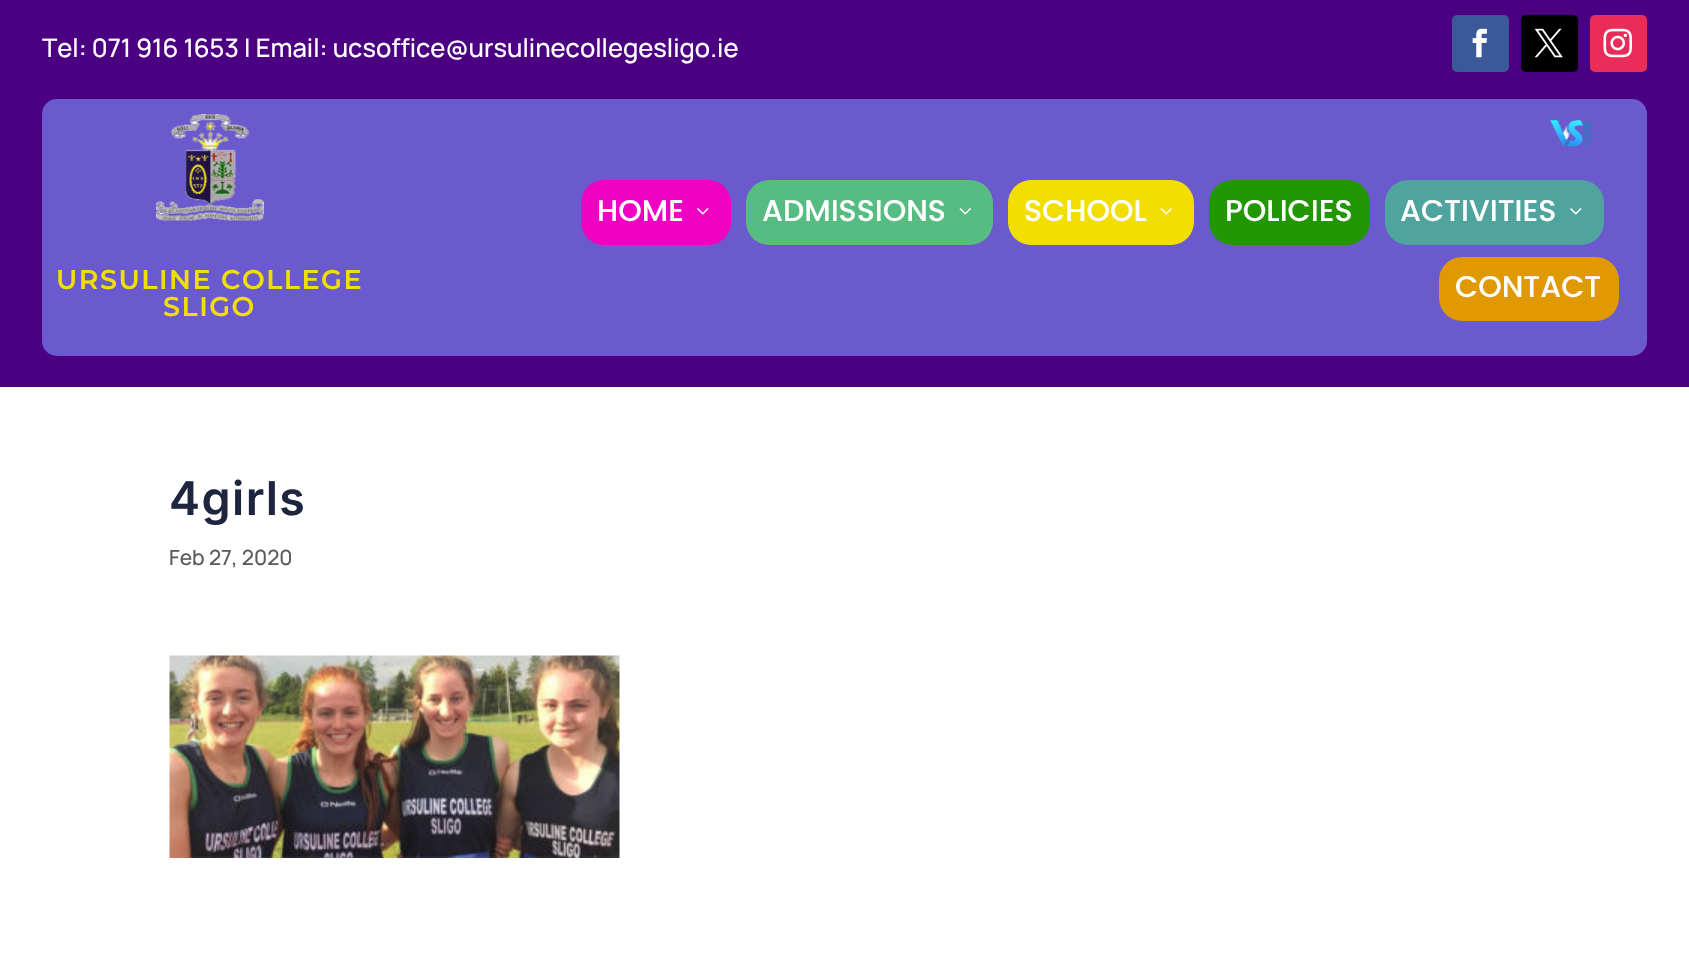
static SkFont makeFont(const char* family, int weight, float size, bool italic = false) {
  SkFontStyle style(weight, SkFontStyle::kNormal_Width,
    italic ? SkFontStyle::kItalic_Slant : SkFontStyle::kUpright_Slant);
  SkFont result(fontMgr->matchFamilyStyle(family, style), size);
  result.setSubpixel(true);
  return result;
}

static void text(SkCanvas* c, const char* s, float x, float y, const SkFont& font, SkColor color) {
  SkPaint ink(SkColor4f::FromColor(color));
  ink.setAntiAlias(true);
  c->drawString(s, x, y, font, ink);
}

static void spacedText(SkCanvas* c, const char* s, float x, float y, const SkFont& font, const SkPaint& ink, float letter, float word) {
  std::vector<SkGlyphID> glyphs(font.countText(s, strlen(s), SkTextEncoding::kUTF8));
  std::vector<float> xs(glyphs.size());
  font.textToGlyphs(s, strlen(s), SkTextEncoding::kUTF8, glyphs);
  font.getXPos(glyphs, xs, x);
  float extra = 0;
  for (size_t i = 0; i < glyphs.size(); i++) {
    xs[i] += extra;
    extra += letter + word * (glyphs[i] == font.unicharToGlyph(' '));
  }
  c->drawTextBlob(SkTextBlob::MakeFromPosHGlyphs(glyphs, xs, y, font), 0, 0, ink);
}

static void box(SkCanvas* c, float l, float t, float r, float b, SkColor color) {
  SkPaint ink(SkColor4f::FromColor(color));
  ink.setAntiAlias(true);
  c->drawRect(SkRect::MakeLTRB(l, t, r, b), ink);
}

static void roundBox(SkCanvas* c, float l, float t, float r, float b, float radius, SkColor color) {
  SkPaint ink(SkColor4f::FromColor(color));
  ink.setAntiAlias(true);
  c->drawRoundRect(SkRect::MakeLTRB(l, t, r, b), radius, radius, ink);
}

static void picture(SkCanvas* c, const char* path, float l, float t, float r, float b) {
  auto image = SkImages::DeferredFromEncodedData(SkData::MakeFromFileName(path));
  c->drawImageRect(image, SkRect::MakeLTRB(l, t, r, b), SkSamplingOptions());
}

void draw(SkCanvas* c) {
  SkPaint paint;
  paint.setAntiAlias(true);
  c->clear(0xffffffff);
  box(c, 0, 0, 1689, 387, 0xff4b0082);
  SkFont face1 = makeFont("Manrope", 200, 25.5f);
  text(c, "Tel: 071 916 1653 | Email: ucsoffice@ursulinecollegesligo.ie", 42, 57, face1, 0xffffffff);
  roundBox(c, 1452, 15, 1509, 72, 5, 0xff3b5998);
  picture(c, "img_01.png", 1472, 28, 1487, 58);
  roundBox(c, 1521, 15, 1578, 72, 5, 0xff000000);
  picture(c, "img_02.png", 1534, 28, 1563, 58);
  roundBox(c, 1590, 15, 1647, 72, 5, 0xffea2c59);
  picture(c, "img_03.png", 1603, 28, 1632, 58);
  roundBox(c, 42, 99, 1647, 356, 15, 0xff6a5acd);
  picture(c, "img_04.png", 156, 114, 264, 221);
  SkFont face2 = makeFont("Montserrat", 100, 27);
  paint.setColor(0xfff1de05);
  spacedText(c, "URSULINE COLLEGE", 56, 289, face2, paint, 1.5f, 0);
  spacedText(c, "SLIGO", 163, 316, face2, paint, 1.5f, 0);
  picture(c, "img_05.png", 1549, 120, 1592, 147);
  roundBox(c, 581, 180, 731, 245, 23, 0xffef00c3);
  SkFont face3 = makeFont("Poppins", 500, 30);
  text(c, "HOME", 597, 221, face3, 0xffffffff);
  picture(c, "img_06.png", 697, 208, 709, 215);
  roundBox(c, 746, 180, 993, 245, 23, 0xff56bc82);
  text(c, "ADMISSIONS", 762, 221, face3, 0xffffffff);
  picture(c, "img_07.png", 959, 208, 971, 215);
  roundBox(c, 1008, 180, 1194, 245, 23, 0xfff2de00);
  text(c, "SCHOOL", 1024, 221, face3, 0xffffffff);
  picture(c, "img_08.png", 1160, 208, 1172, 215);
  roundBox(c, 1209, 180, 1370, 245, 23, 0xff229603);
  text(c, "POLICIES", 1225, 221, face3, 0xffffffff);
  roundBox(c, 1385, 180, 1604, 245, 23, 0xff4fa59e);
  text(c, "ACTIVITIES", 1400, 221, face3, 0xffffffff);
  picture(c, "img_09.png", 1570, 208, 1582, 215);
  roundBox(c, 1439, 257, 1619, 321, 23, 0xffe09900);
  text(c, "CONTACT", 1455, 297, face3, 0xffffffff);
  SkFont face4 = makeFont("Inter", 600, 46.5f);
  paint.setColor(0xff1e253f);
  spacedText(c, "4girls", 169, 515, face4, paint, 1.5f, 0);
  SkFont face5 = makeFont("Manrope", 200, 21);
  text(c, "Feb 27, 2020", 169, 565, face5, 0xff5b5b5b);
  picture(c, "img_10.png", 169, 655, 620, 858);
}
